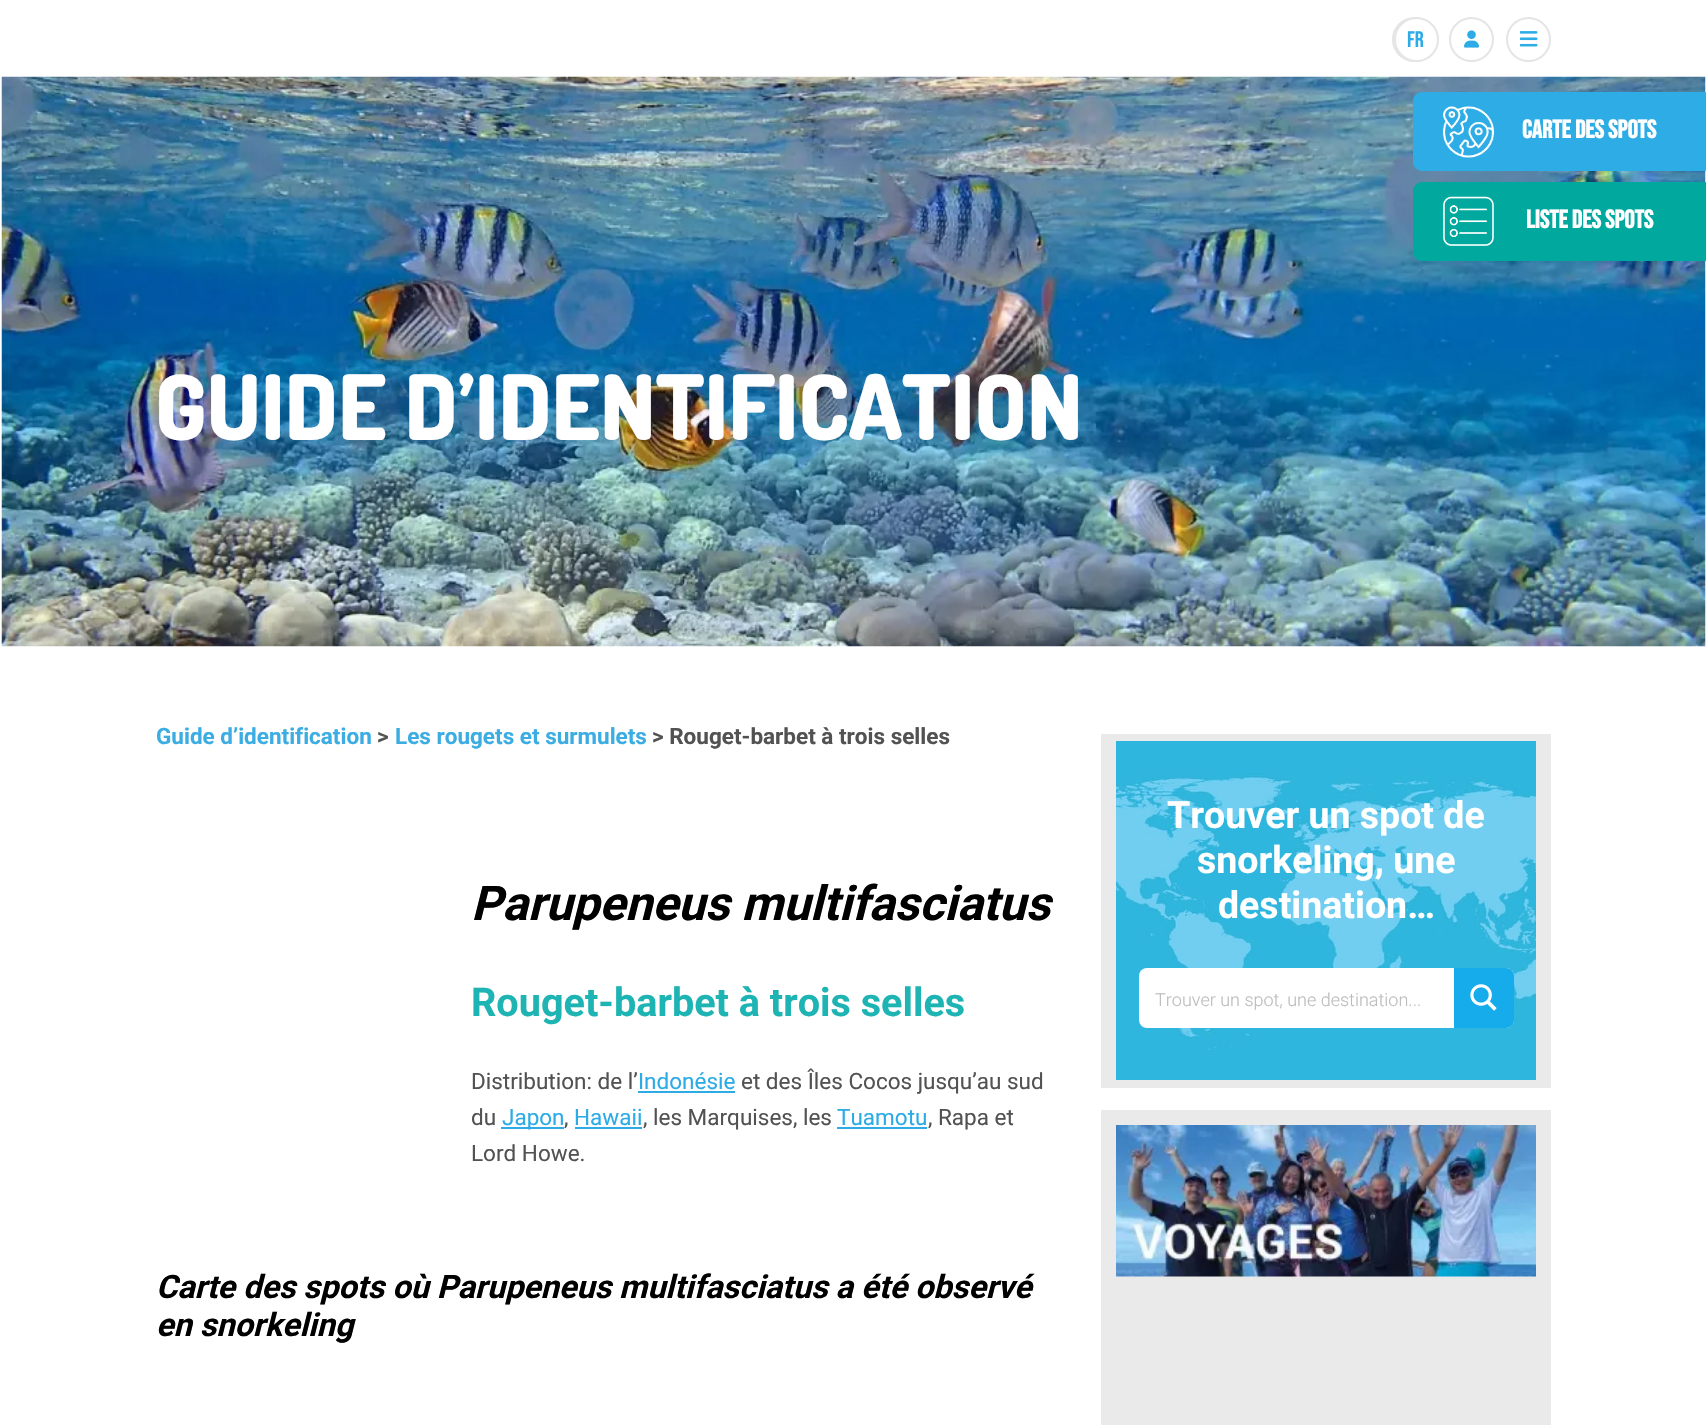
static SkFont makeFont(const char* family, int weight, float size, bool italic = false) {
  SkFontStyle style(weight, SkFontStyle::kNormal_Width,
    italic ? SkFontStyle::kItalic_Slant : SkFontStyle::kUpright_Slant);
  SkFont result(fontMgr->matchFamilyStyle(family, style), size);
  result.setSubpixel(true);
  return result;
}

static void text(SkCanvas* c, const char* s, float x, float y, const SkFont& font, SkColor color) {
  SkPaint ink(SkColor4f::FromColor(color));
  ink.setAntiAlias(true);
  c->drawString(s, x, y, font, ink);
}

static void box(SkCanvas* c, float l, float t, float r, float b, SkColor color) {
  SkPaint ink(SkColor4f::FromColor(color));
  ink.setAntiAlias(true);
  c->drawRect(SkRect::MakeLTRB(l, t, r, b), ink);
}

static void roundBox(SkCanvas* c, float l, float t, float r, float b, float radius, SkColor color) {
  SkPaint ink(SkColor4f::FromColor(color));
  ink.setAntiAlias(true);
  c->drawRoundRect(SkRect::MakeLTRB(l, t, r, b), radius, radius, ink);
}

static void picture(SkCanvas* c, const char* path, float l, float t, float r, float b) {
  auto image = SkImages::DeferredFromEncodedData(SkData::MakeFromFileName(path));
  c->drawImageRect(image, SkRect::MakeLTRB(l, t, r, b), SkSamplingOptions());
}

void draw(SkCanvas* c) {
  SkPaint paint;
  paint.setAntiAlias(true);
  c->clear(0xffffffff);
  paint.setStyle(SkPaint::kStroke_Style);
  paint.setStrokeWidth(2);
  paint.setColor(0xffe5e5e5);
  c->drawCircle(1414.5f, 39.5f, 21.5f, paint);
  paint.setStyle(SkPaint::kFill_Style);
  paint.setColor(0xffffffff);
  c->drawCircle(1416.5f, 39.5f, 21.5f, paint);
  paint.setStyle(SkPaint::kStroke_Style);
  paint.setColor(0xffe5e5e5);
  c->drawCircle(1416.5f, 39.5f, 21.5f, paint);
  SkFont face1 = makeFont("Bebas Neue", 400, 22.5f);
  text(c, "FR", 1407, 47, face1, 0xff2cabe6);
  c->drawCircle(1471.5f, 39.5f, 21.5f, paint);
  picture(c, "img_01.png", 1464, 30, 1479, 48);
  c->drawCircle(1528.5f, 39.5f, 21.5f, paint);
  picture(c, "img_02.png", 1520, 31, 1538, 47);
  picture(c, "img_05.png", 1, 76, 1706, 647);
  c->save();
  c->clipRect(SkRect::MakeLTRB(2, 77, 1706, 647));
  roundBox(c, 1413, 92, 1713, 171, 9, 0xff2dace6);
  c->restore();
  picture(c, "img_03.png", 1443, 106, 1494, 158);
  SkFont face2 = makeFont("Bebas Neue", 700, 25.5f);
  text(c, "CARTE DES SPOTS", 1522, 138, face2, 0xffffffff);
  c->save();
  c->clipRect(SkRect::MakeLTRB(2, 77, 1706, 647));
  roundBox(c, 1413, 182, 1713, 261, 9, 0xff00a89e);
  c->restore();
  picture(c, "img_04.png", 1443, 196, 1494, 246);
  text(c, "LISTE DES SPOTS", 1526, 228, face2, 0xffffffff);
  SkFont face3 = makeFont("Dosis", 800, 90);
  text(c, "GUIDE D’IDENTIFICATION", 155, 440, face3, 0xffffffff);
  SkFont face4 = makeFont("Roboto", 700, 22.5f);
  text(c, "Guide d’identification", 156, 744, face4, 0xff3bade3);
  text(c, ">", 377, 744, face4, 0xff525252);
  text(c, "Les rougets et surmulets", 395, 744, face4, 0xff3bade3);
  text(c, "> Rouget-barbet à trois selles", 652, 744, face4, 0xff525252);
  SkFont face5 = makeFont("Roboto", 700, 48, true);
  text(c, "Parupeneus multifasciatus", 471, 920, face5, 0xff000000);
  SkFont face6 = makeFont("Roboto", 700, 39.6f);
  text(c, "Rouget-barbet à trois selles", 471, 1016, face6, 0xff1eb4b3);
  SkFont face7 = makeFont("Roboto", 400, 22.5f);
  text(c, "Distribution: de l’", 471, 1089, face7, 0xff525252);
  text(c, "Indonésie", 638, 1089, face7, 0xff2cabe6);
  box(c, 638, 1091, 735, 1093, 0xff2cabe6);
  text(c, "et des Îles Cocos jusqu’au sud", 741, 1089, face7, 0xff525252);
  text(c, "du", 471, 1125, face7, 0xff525252);
  box(c, 501, 1127, 564, 1129, 0xff2cabe6);
  text(c, "Japon", 502, 1125, face7, 0xff2cabe6);
  text(c, ",", 564, 1125, face7, 0xff525252);
  text(c, "Hawaii", 574, 1125, face7, 0xff2cabe6);
  box(c, 575, 1127, 642, 1129, 0xff2cabe6);
  text(c, ", les Marquises, les", 643, 1125, face7, 0xff525252);
  text(c, "Tuamotu", 837, 1125, face7, 0xff2cabe6);
  box(c, 837, 1127, 927, 1129, 0xff2cabe6);
  text(c, ", Rapa et", 928, 1125, face7, 0xff525252);
  text(c, "Lord Howe.", 471, 1161, face7, 0xff525252);
  SkFont face8 = makeFont("Roboto", 700, 32.4f, true);
  text(c, "Carte des spots où Parupeneus multifasciatus a été observé", 156, 1298, face8, 0xff000000);
  text(c, "en snorkeling", 156, 1336, face8, 0xff000000);
  box(c, 1101, 734, 1551, 1088, 0xffeaeaea);
  picture(c, "img_06.png", 1116, 741, 1536, 1080);
  SkFont face9 = makeFont("Roboto", 700, 37.5f);
  text(c, "Trouver un spot de", 1167, 828, face9, 0xffffffff);
  text(c, "snorkeling, une", 1197, 873, face9, 0xffffffff);
  text(c, "destination…", 1218, 918, face9, 0xffffffff);
  roundBox(c, 1139, 968, 1514, 1028, 8, 0xffffffff);
  SkFont face10 = makeFont("Roboto", 300, 18);
  text(c, "Trouver un spot, une destination...", 1155, 1006, face10, 0xffbbbbbb);
  paint.setStyle(SkPaint::kFill_Style);
  paint.setColor(0xff16abea);
  c->drawPath(SkPathBuilder().moveTo(1454, 968).lineTo(1506, 968).cubicTo(1510.5f, 968, 1514, 971.5f, 1514, 976).lineTo(1514, 1020).cubicTo(1514, 1024.5f, 1510.5f, 1028, 1506, 1028).lineTo(1454, 1028).close().detach(), paint);
  picture(c, "img_07.png", 1470, 984, 1497, 1011);
  box(c, 1101, 1110, 1551, 1425, 0xffeaeaea);
  picture(c, "img_08.png", 1116, 1125, 1536, 1277);
}
